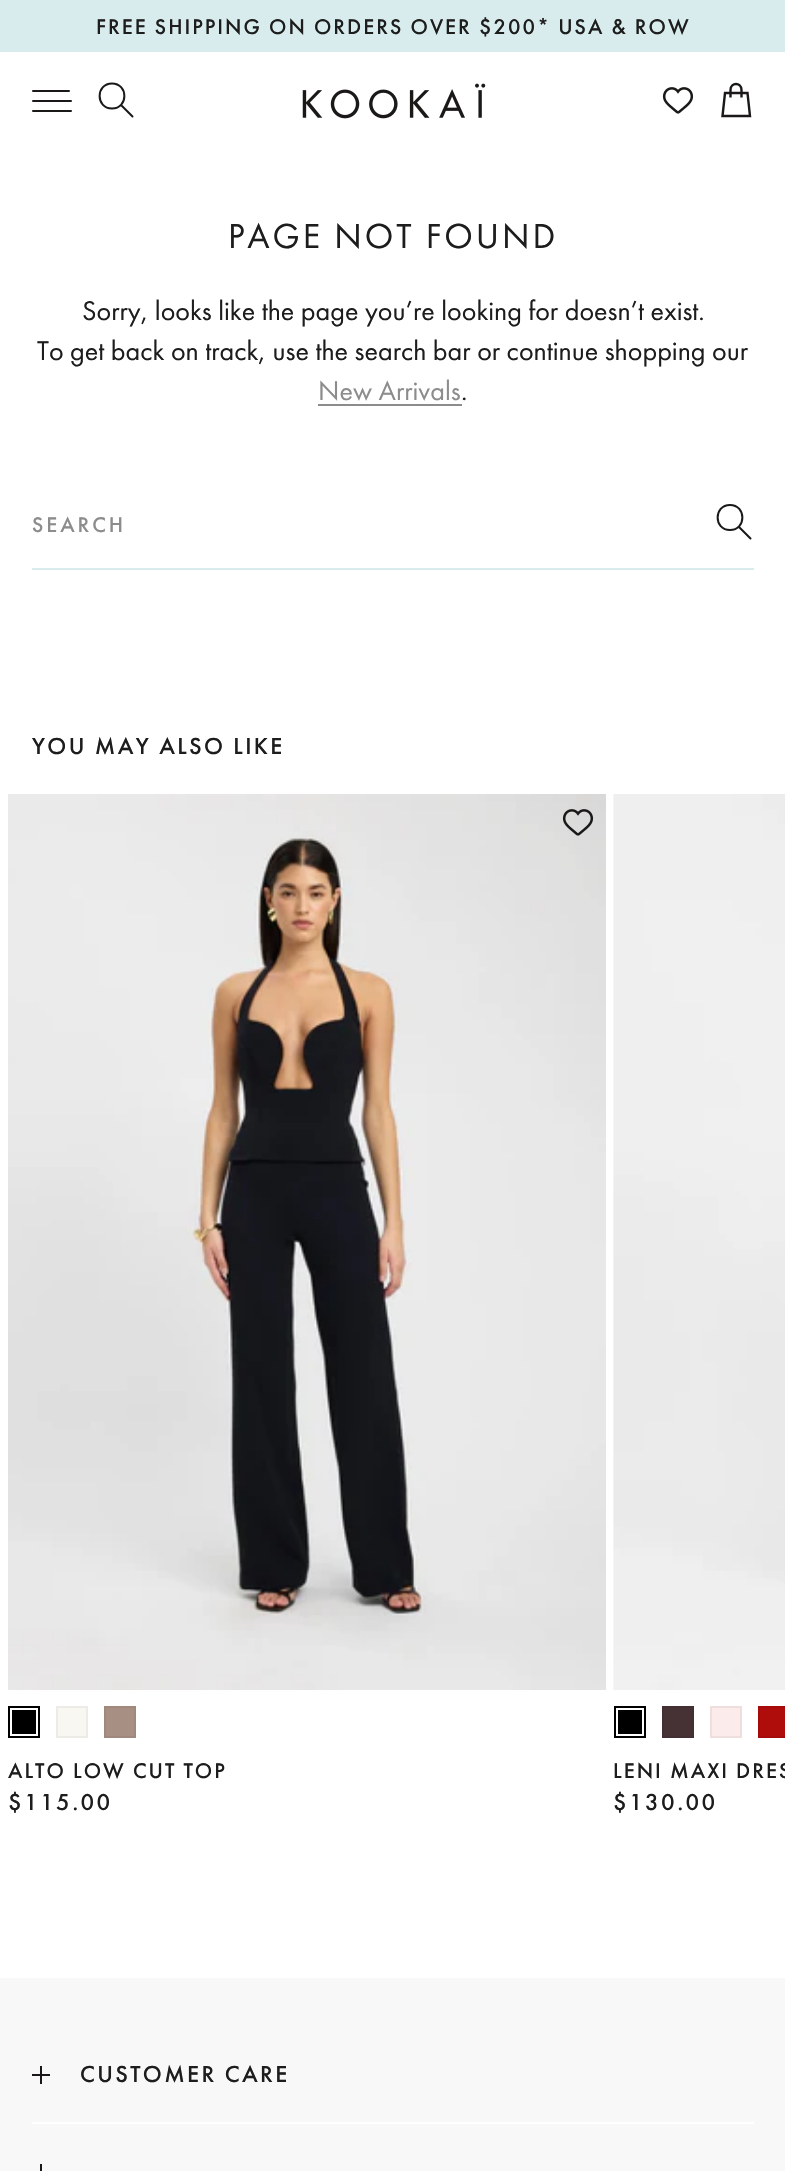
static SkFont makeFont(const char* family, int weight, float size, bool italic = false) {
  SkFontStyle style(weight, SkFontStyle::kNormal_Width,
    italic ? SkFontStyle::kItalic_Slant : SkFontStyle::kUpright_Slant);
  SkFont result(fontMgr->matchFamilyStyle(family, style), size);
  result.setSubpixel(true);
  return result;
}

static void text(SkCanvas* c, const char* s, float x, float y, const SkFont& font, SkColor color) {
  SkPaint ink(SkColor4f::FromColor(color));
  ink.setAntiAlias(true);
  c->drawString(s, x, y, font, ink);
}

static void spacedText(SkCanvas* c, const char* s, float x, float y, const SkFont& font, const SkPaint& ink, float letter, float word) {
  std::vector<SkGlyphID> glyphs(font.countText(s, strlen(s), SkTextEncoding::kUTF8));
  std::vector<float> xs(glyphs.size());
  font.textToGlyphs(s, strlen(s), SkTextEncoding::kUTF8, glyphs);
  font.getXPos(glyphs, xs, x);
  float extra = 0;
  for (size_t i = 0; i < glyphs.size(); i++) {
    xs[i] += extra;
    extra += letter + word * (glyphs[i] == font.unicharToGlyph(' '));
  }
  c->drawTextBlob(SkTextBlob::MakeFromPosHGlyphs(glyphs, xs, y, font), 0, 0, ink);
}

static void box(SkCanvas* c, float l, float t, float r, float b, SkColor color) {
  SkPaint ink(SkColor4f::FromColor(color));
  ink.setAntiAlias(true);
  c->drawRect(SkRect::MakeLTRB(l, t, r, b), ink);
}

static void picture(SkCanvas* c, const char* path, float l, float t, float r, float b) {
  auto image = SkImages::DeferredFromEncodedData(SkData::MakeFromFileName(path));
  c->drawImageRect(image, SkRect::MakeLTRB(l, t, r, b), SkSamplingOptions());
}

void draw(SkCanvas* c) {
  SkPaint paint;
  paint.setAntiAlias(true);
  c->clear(0xffffffff);
  box(c, 0, 0, 785, 52, 0xffd8eced);
  SkFont face1 = makeFont("Futura PT", 500, 22);
  paint.setColor(0xff1d1d1d);
  spacedText(c, "FREE SHIPPING ON ORDERS OVER $200* USA & ROW", 96, 34, face1, paint, 2, 0);
  paint.setStyle(SkPaint::kStroke_Style);
  paint.setStrokeWidth(2);
  paint.setStrokeCap(SkPaint::kRound_Cap);
  paint.setColor(0xff1a1918);
  c->drawPath(SkPathBuilder().moveTo(33, 91).lineTo(69, 91).moveTo(33, 101).lineTo(71, 101).moveTo(33, 111).lineTo(71, 111).detach(), paint);
  paint.setStrokeJoin(SkPaint::kRound_Join);
  c->drawPath(SkPathBuilder().moveTo(112, 108.5f).cubicTo(128.5f, 108.5f, 128.5f, 83.5f, 112, 83.5f).cubicTo(95.5f, 83.5f, 95.5f, 108.5f, 112, 108.5f).close().moveTo(121, 105).lineTo(132.5f, 116.5f).detach(), paint);
  picture(c, "img_01.png", 302, 83, 486, 119);
  picture(c, "img_02.png", 662, 87, 694, 114);
  paint.setStrokeWidth(2.4f);
  paint.setStrokeCap(SkPaint::kButt_Cap);
  paint.setStrokeJoin(SkPaint::kMiter_Join);
  c->drawPath(SkPathBuilder().moveTo(725, 93).lineTo(747.5f, 93).lineTo(750, 116).lineTo(722.5f, 116).close().moveTo(741.5f, 97.5f).lineTo(741.5f, 90).cubicTo(741.5f, 85.5f, 738.5f, 84, 736, 84).cubicTo(733.5f, 84, 730.5f, 85.5f, 730.5f, 90).lineTo(730.5f, 97.5f).detach(), paint);
  SkFont face2 = makeFont("Futura PT", 400, 36);
  paint.setStyle(SkPaint::kFill_Style);
  paint.setColor(0xff1d1d1d);
  spacedText(c, "PAGE NOT FOUND", 228, 248, face2, paint, 2.9f, 0);
  SkFont face3 = makeFont("Futura PT", 400, 28);
  text(c, "Sorry, looks like the page you’re looking for doesn’t exist.", 82, 320, face3, 0xff1d1d1d);
  text(c, "To get back on track, use the search bar or continue shopping our", 37, 360, face3, 0xff1d1d1d);
  text(c, "New Arrivals", 318, 400, face3, 0xff8c8c8c);
  box(c, 318, 404, 462, 406, 0xff8c8c8c);
  text(c, ".", 461, 400, face3, 0xff1d1d1d);
  box(c, 32, 568, 754, 570, 0xffd8eced);
  paint.setColor(0xff8c8c8c);
  spacedText(c, "SEARCH", 32, 532, face1, paint, 2.9f, 0);
  paint.setStyle(SkPaint::kStroke_Style);
  paint.setStrokeWidth(2);
  paint.setStrokeCap(SkPaint::kRound_Cap);
  paint.setStrokeJoin(SkPaint::kRound_Join);
  paint.setColor(0xff1a1918);
  c->drawPath(SkPathBuilder().moveTo(730, 530).cubicTo(746.5f, 530, 746.5f, 505, 730, 505).cubicTo(713.5f, 505, 713.5f, 530, 730, 530).close().moveTo(739, 527).lineTo(750.5f, 538.5f).detach(), paint);
  SkFont face4 = makeFont("Futura PT", 500, 24);
  paint.setStyle(SkPaint::kFill_Style);
  paint.setColor(0xff1d1d1d);
  spacedText(c, "YOU MAY ALSO LIKE", 32, 754, face4, paint, 2.4f, 0);
  picture(c, "img_03.png", 8, 794, 606, 1690);
  picture(c, "img_04.png", 562, 809, 594, 836);
  box(c, 8, 1706, 40, 1738, 0xff000000);
  paint.setStyle(SkPaint::kStroke_Style);
  paint.setStrokeCap(SkPaint::kButt_Cap);
  paint.setStrokeJoin(SkPaint::kMiter_Join);
  paint.setColor(0xffffffff);
  c->drawRect(SkRect::MakeLTRB(11, 1709, 37, 1735), paint);
  paint.setStyle(SkPaint::kFill_Style);
  paint.setColor(0xfff8f7f1);
  c->drawRect(SkRect::MakeLTRB(57, 1707, 87, 1737), paint);
  paint.setStyle(SkPaint::kStroke_Style);
  paint.setColor(0xffecebe5);
  c->drawRect(SkRect::MakeLTRB(57, 1707, 87, 1737), paint);
  paint.setStyle(SkPaint::kFill_Style);
  paint.setColor(0xffa88f83);
  c->drawRect(SkRect::MakeLTRB(105, 1707, 135, 1737), paint);
  paint.setStyle(SkPaint::kStroke_Style);
  paint.setColor(0xffa0887c);
  c->drawRect(SkRect::MakeLTRB(105, 1707, 135, 1737), paint);
  paint.setStyle(SkPaint::kFill_Style);
  paint.setColor(0xff1d1d1d);
  spacedText(c, "ALTO LOW CUT TOP", 8, 1778, face1, paint, 2, 0);
  spacedText(c, "$115.00", 8, 1810, face4, paint, 2.4f, 0);
  picture(c, "img_05.png", 613, 794, 785, 1690);
  box(c, 614, 1706, 646, 1738, 0xff000000);
  paint.setStyle(SkPaint::kStroke_Style);
  paint.setColor(0xffffffff);
  c->drawRect(SkRect::MakeLTRB(617, 1709, 643, 1735), paint);
  paint.setStyle(SkPaint::kFill_Style);
  paint.setColor(0xff463134);
  c->drawRect(SkRect::MakeLTRB(663, 1707, 693, 1737), paint);
  paint.setStyle(SkPaint::kStroke_Style);
  paint.setColor(0xff432f31);
  c->drawRect(SkRect::MakeLTRB(663, 1707, 693, 1737), paint);
  paint.setStyle(SkPaint::kFill_Style);
  paint.setColor(0xfffbebea);
  c->drawRect(SkRect::MakeLTRB(711, 1707, 741, 1737), paint);
  paint.setStyle(SkPaint::kStroke_Style);
  paint.setColor(0xffeedfde);
  c->drawRect(SkRect::MakeLTRB(711, 1707, 741, 1737), paint);
  paint.setStyle(SkPaint::kFill_Style);
  paint.setColor(0xffaf0c0c);
  c->drawRect(SkRect::MakeLTRB(759, 1707, 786, 1737), paint);
  paint.setStyle(SkPaint::kStroke_Style);
  paint.setColor(0xffa60b0b);
  c->drawRect(SkRect::MakeLTRB(759, 1707, 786, 1737), paint);
  paint.setStyle(SkPaint::kFill_Style);
  paint.setColor(0xff1d1d1d);
  spacedText(c, "LENI MAXI DRES", 613, 1778, face1, paint, 2, 0);
  spacedText(c, "$130.00", 613, 1810, face4, paint, 2.4f, 0);
  box(c, 0, 1978, 785, 2171, 0xfff8f8f8);
  box(c, 32, 2074, 50, 2076, 0xff1a1918);
  box(c, 40, 2066, 42, 2084, 0xff1a1918);
  spacedText(c, "CUSTOMER CARE", 80, 2082, face4, paint, 2.4f, 0);
  box(c, 32, 2122, 754, 2124, 0xffffffff);
  box(c, 40, 2164, 42, 2171, 0xff1a1918);
}
